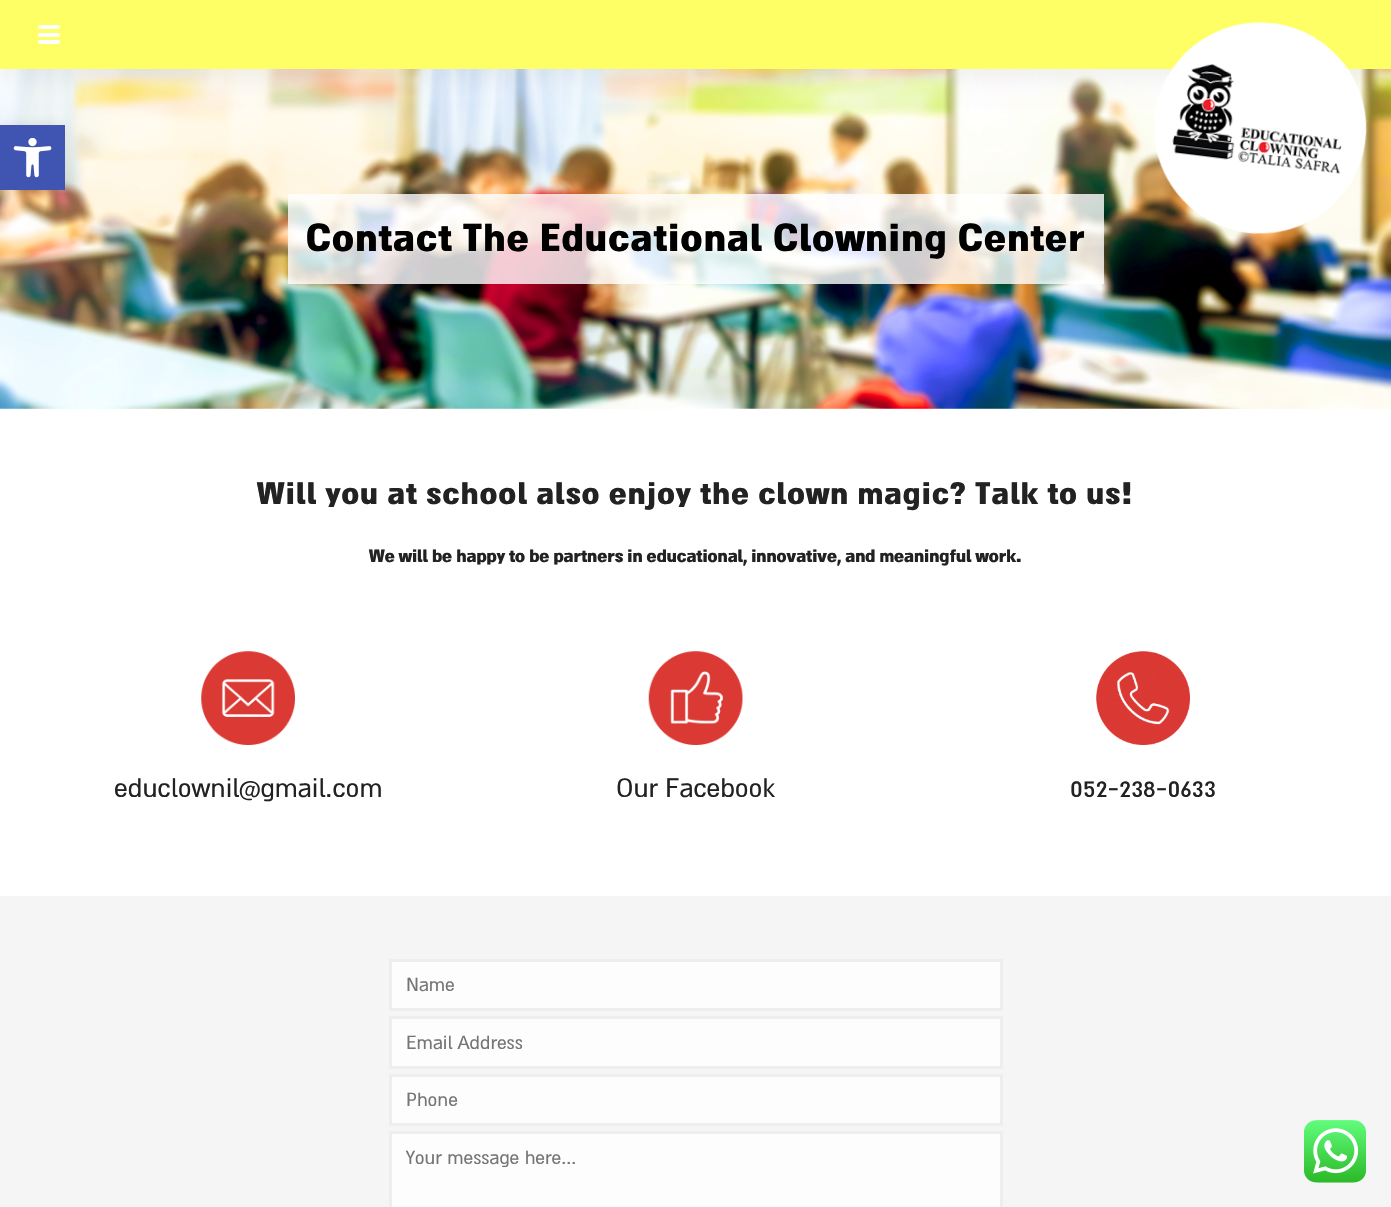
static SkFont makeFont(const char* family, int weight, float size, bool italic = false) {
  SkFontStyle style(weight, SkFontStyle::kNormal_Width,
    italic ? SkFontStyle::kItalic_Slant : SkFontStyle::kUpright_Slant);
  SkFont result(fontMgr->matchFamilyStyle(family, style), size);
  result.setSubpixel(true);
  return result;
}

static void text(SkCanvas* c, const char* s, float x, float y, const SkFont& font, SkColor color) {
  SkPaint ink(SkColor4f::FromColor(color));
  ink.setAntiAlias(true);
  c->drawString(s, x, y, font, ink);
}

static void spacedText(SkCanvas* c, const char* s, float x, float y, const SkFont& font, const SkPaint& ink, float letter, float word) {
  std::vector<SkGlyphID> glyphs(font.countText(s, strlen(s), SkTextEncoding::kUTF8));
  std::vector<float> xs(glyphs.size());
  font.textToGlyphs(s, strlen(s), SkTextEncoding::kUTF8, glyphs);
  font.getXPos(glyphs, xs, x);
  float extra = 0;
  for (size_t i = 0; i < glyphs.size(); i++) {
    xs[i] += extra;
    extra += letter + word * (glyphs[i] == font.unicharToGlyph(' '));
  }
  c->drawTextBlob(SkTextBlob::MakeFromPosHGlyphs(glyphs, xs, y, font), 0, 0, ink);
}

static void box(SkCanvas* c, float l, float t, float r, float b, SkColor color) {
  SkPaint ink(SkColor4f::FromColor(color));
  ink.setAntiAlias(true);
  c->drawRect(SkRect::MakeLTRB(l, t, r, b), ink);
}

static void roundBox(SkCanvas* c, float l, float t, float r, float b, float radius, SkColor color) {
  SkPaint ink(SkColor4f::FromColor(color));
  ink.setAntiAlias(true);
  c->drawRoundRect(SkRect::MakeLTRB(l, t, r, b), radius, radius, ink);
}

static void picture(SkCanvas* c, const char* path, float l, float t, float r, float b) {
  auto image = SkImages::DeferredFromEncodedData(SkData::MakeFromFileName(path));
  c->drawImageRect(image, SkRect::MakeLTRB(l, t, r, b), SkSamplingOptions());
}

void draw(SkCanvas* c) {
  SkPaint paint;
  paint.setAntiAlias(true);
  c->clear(0xffffffff);
  picture(c, "img_03.png", 0, 69, 1391, 409);
  paint.setColor(0x1a000000);
  paint.setMaskFilter(SkMaskFilter::MakeBlur(kNormal_SkBlurStyle, 6));
  c->drawRect(SkRect::MakeLTRB(0, 125, 65, 190), paint);
  paint.setMaskFilter(nullptr);
  box(c, 0, 125, 65, 190, 0xff4054b2);
  picture(c, "img_01.png", 13, 138, 52, 178);
  paint.setColor(0x0f000000);
  paint.setMaskFilter(SkMaskFilter::MakeBlur(kNormal_SkBlurStyle, 12.5f));
  c->drawRect(SkRect::MakeLTRB(0, 10, 1391, 79), paint);
  paint.setMaskFilter(nullptr);
  box(c, 0, 0, 1391, 69, 0xfffeff65);
  roundBox(c, 38, 25, 60, 29, 2, 0xffffffff);
  roundBox(c, 38, 33, 60, 37, 2, 0xffffffff);
  roundBox(c, 38, 40, 60, 44, 2, 0xffffffff);
  picture(c, "img_02.png", 1154, 21, 1367, 234);
  box(c, 288, 194, 1104, 284, 0xccffffff);
  SkFont face1 = makeFont("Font", 900, 43.75f);
  paint.setColor(0xff000000);
  spacedText(c, "Contact The Educational Clowning Center", 306, 251, face1, paint, 1.25f, 0);
  SkFont face2 = makeFont("Font", 900, 35);
  paint.setColor(0xff222222);
  spacedText(c, "Will you at school also enjoy the clown magic? Talk to us!", 257, 504, face2, paint, 1.25f, 0);
  SkFont face3 = makeFont("Font", 900, 20);
  text(c, "We will be happy to be partners in educational, innovative, and meaningful work.", 369, 562, face3, 0xff222222);
  picture(c, "img_04.png", 201, 651, 295, 745);
  SkFont face4 = makeFont("Font", 400, 30);
  text(c, "educlownil@gmail.com", 114, 797, face4, 0xff222222);
  picture(c, "img_05.png", 648, 651, 743, 745);
  text(c, "Our Facebook", 616, 797, face4, 0xff222222);
  picture(c, "img_06.png", 1096, 651, 1190, 745);
  text(c, "052-238-0633", 1070, 797, face4, 0xff222222);
  box(c, 0, 896, 1391, 1207, 0xfff5f5f5);
  paint.setColor(0xfffdfdfd);
  c->drawRect(SkRect::MakeLTRB(390.5f, 960.5f, 1001.5f, 1009.5f), paint);
  paint.setStyle(SkPaint::kStroke_Style);
  paint.setStrokeWidth(3);
  paint.setColor(0xffeeeeee);
  c->drawRect(SkRect::MakeLTRB(390.5f, 960.5f, 1001.5f, 1009.5f), paint);
  SkFont face5 = makeFont("Font", 400, 21.25f);
  text(c, "Name", 406, 991, face5, 0xff757575);
  paint.setStyle(SkPaint::kFill_Style);
  paint.setColor(0xfffdfdfd);
  c->drawRect(SkRect::MakeLTRB(390.5f, 1017.5f, 1001.5f, 1067.5f), paint);
  paint.setStyle(SkPaint::kStroke_Style);
  paint.setColor(0xffeeeeee);
  c->drawRect(SkRect::MakeLTRB(390.5f, 1017.5f, 1001.5f, 1067.5f), paint);
  text(c, "Email Address", 406, 1049, face5, 0xff757575);
  paint.setStyle(SkPaint::kFill_Style);
  paint.setColor(0xfffdfdfd);
  c->drawRect(SkRect::MakeLTRB(390.5f, 1075.5f, 1001.5f, 1124.5f), paint);
  paint.setStyle(SkPaint::kStroke_Style);
  paint.setColor(0xffeeeeee);
  c->drawRect(SkRect::MakeLTRB(390.5f, 1075.5f, 1001.5f, 1124.5f), paint);
  text(c, "Phone", 406, 1106, face5, 0xff757575);
  paint.setStyle(SkPaint::kFill_Style);
  paint.setColor(0xfffdfdfd);
  c->drawRect(SkRect::MakeLTRB(390.5f, 1132.5f, 1001.5f, 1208.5f), paint);
  paint.setStyle(SkPaint::kStroke_Style);
  paint.setColor(0xffeeeeee);
  c->drawRect(SkRect::MakeLTRB(390.5f, 1132.5f, 1001.5f, 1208.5f), paint);
  text(c, "Your message here...", 406, 1164, face5, 0xff757575);
  picture(c, "img_07.png", 1304, 1120, 1366, 1183);
}
